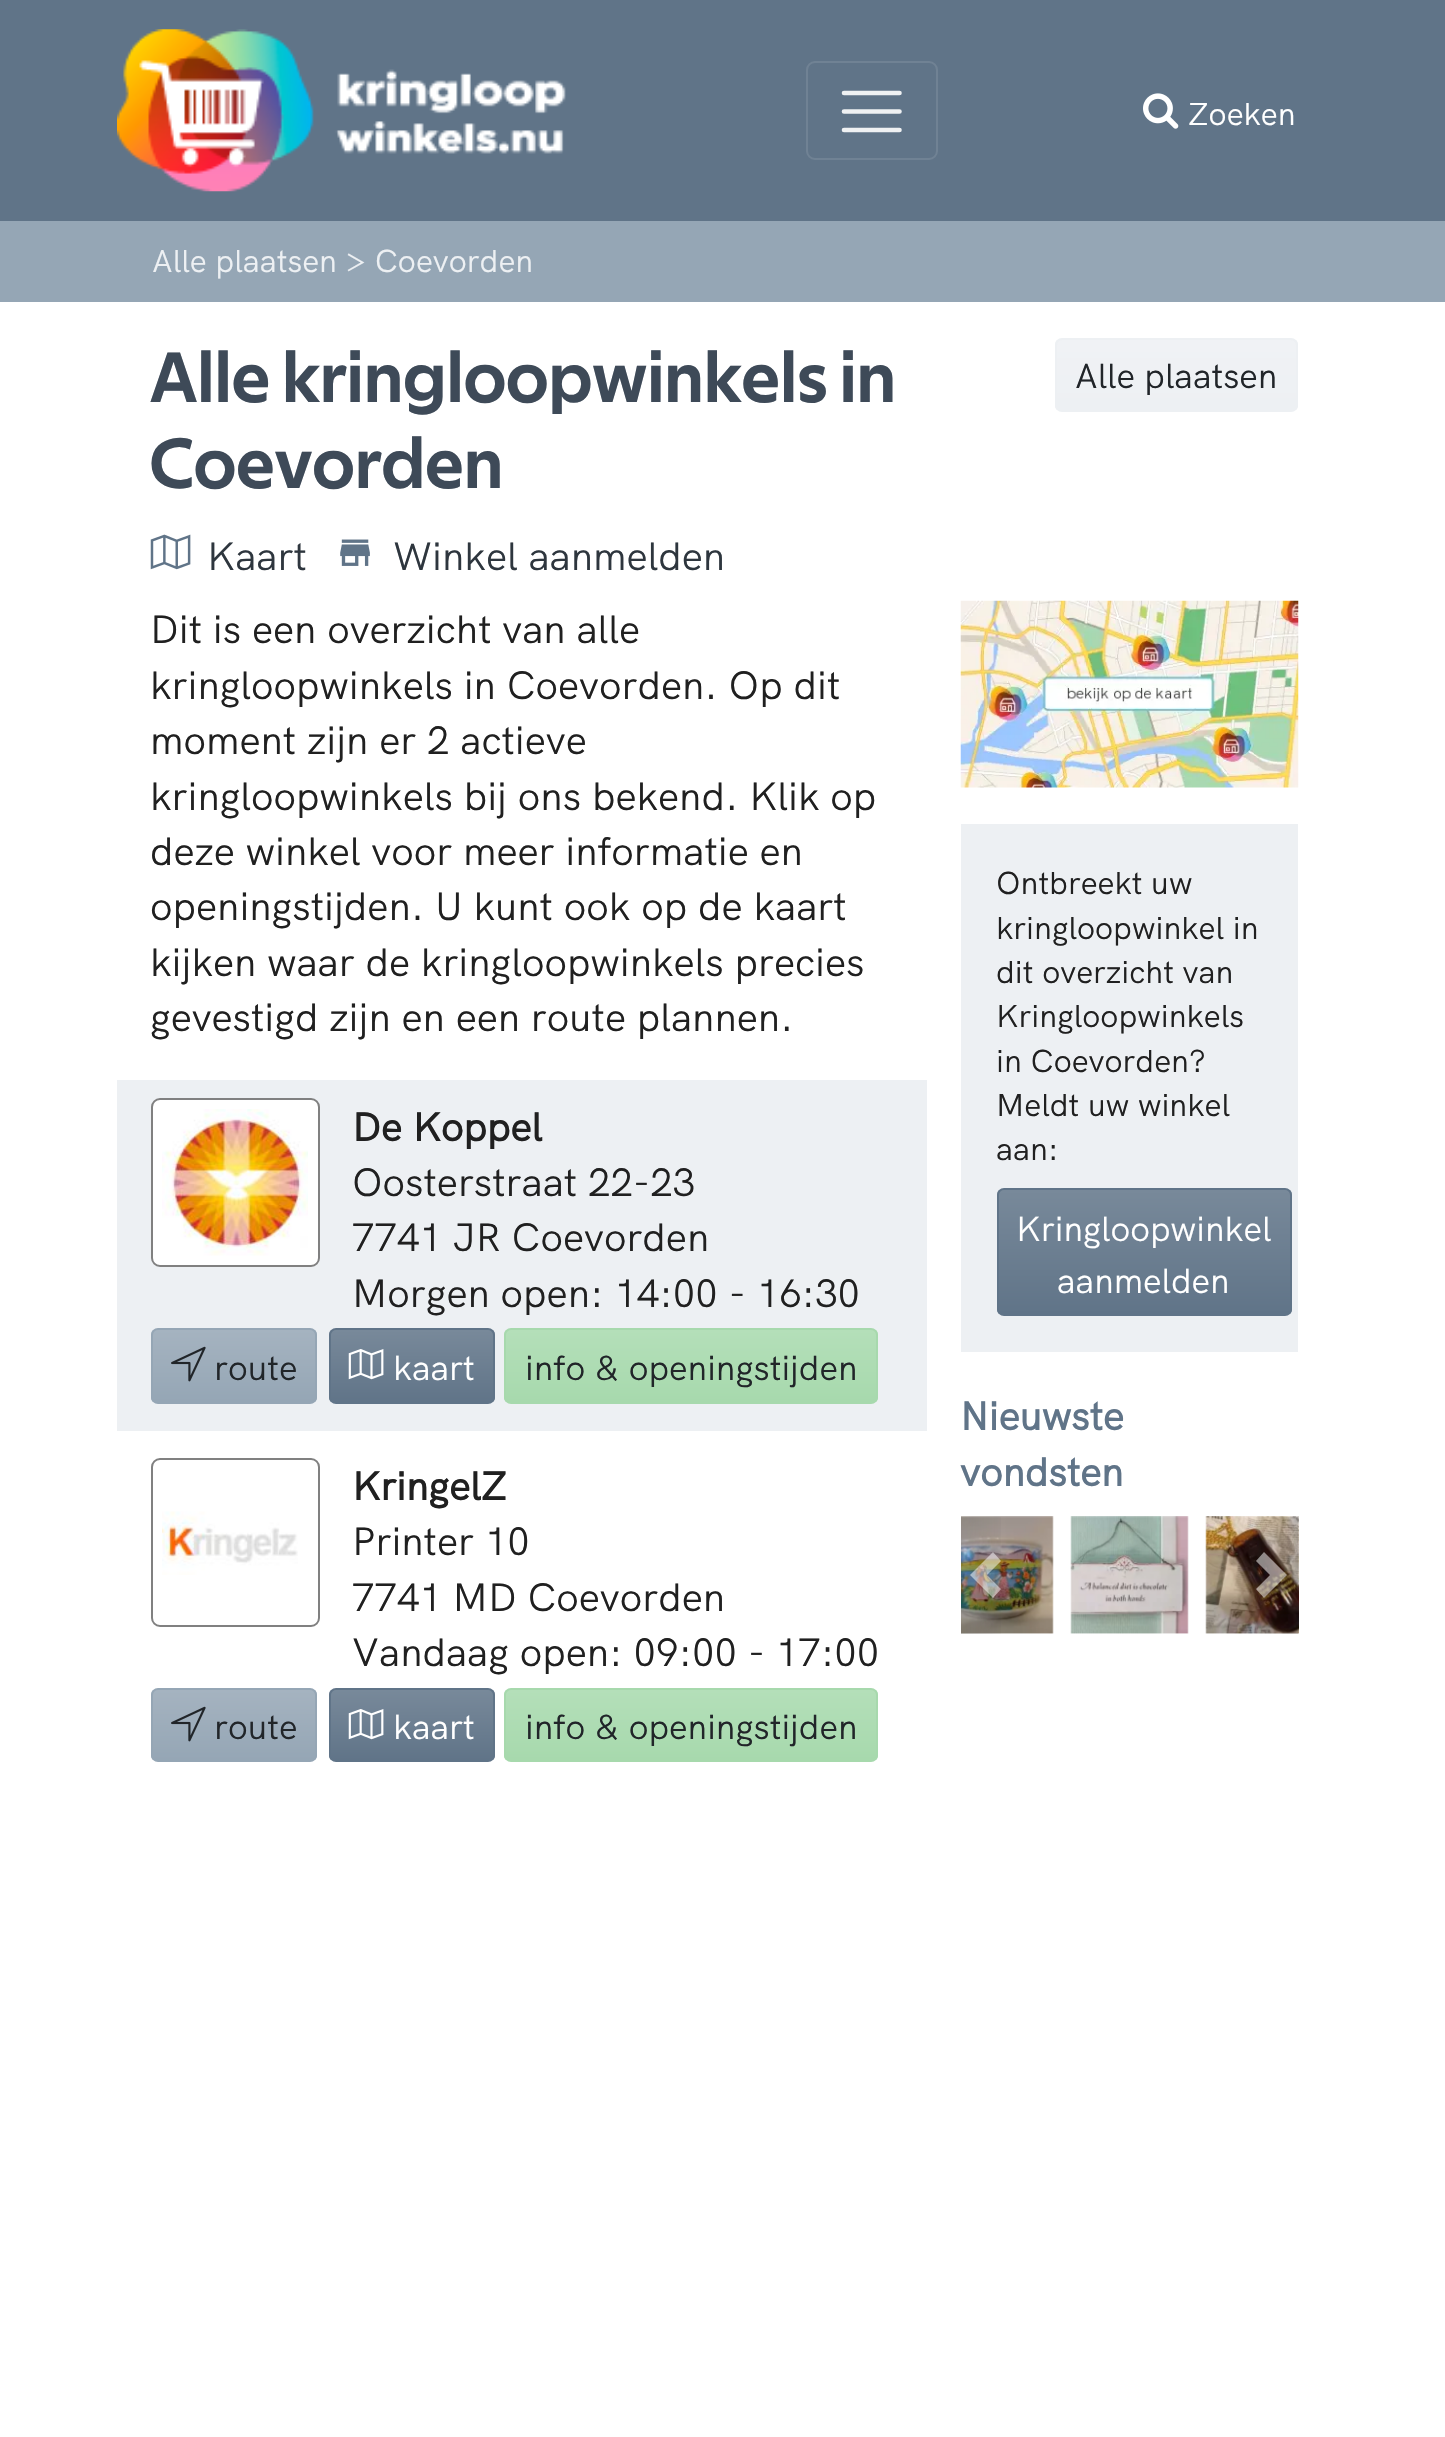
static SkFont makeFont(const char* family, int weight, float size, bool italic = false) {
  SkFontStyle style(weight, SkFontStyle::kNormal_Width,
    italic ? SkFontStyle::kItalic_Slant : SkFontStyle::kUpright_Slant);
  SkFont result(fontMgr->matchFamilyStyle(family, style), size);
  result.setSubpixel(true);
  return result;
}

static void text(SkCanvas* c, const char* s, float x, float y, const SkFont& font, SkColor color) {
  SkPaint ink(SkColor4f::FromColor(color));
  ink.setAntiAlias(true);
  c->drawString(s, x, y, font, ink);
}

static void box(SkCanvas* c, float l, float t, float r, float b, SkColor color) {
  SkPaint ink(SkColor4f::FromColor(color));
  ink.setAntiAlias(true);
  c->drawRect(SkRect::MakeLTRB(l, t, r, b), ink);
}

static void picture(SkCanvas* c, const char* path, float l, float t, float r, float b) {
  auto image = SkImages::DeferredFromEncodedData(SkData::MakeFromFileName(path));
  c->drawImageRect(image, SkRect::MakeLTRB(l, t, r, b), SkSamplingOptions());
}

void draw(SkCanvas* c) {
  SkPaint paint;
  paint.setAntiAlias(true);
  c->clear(0xffffffff);
  box(c, 0, 0, 1445, 221, 0xff607488);
  picture(c, "img_01.png", 117, 29, 566, 192);
  paint.setStyle(SkPaint::kStroke_Style);
  paint.setStrokeWidth(2);
  paint.setColor(0xff708294);
  c->drawRoundRect(SkRect::MakeLTRB(807, 62, 937, 159), 8, 8, paint);
  paint.setStrokeWidth(4.6f);
  paint.setStrokeCap(SkPaint::kRound_Cap);
  paint.setColor(0xffeff1f3);
  c->drawPath(SkPathBuilder().moveTo(844, 93).lineTo(899.5f, 93).moveTo(844, 111.5f).lineTo(899.5f, 111.5f).moveTo(844, 130).lineTo(899.5f, 130).detach(), paint);
  picture(c, "img_02.png", 1143, 93, 1179, 129);
  SkFont face1 = makeFont("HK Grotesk", 400, 31.75f);
  text(c, "Zoeken", 1188, 125, face1, 0xffffffff);
  box(c, 0, 221, 1445, 302, 0xff95a6b5);
  text(c, "Alle plaatsen > Coevorden", 152, 272, face1, 0xffedf0f3);
  SkFont face2 = makeFont("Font", 400, 72);
  text(c, "Alle kringloopwinkels in", 150, 402, face2, 0xff3e4a58);
  text(c, "Coevorden", 150, 488, face2, 0xff3e4a58);
  c->save();
  c->clipPath(SkPathBuilder().moveTo(1062, 338).lineTo(1291, 338).cubicTo(1295, 338, 1298, 341, 1298, 345).lineTo(1298, 405).cubicTo(1298, 409, 1295, 412, 1291, 412).lineTo(1062, 412).cubicTo(1058, 412, 1055, 409, 1055, 405).lineTo(1055, 345).cubicTo(1055, 341, 1058, 338, 1062, 338).close().detach(), true);
  paint.setStyle(SkPaint::kFill_Style);
  {
    const SkColor colors[] = {0xfff0f2f5, 0xffedf0f3};
    const float stops[] = {0, 1};
    const SkPoint ends[] = {{1177, 340}, {1177, 410}};
    paint.setShader(SkGradientShader::MakeLinear(ends, colors, stops, 2, SkTileMode::kClamp));
    paint.setAlpha(255);
  }
  c->drawRect(SkRect::MakeLTRB(1055, 340, 1298, 410), paint);
  c->restore();
  paint.setStyle(SkPaint::kStroke_Style);
  paint.setStrokeWidth(2);
  paint.setStrokeCap(SkPaint::kButt_Cap);
  paint.setShader(nullptr);
  paint.setColor(0xffedf0f3);
  c->drawRoundRect(SkRect::MakeLTRB(1056, 339, 1297, 411), 6, 6, paint);
  SkFont face3 = makeFont("HK Grotesk", 400, 34.75f);
  text(c, "Alle plaatsen", 1075, 388, face3, 0xff212529);
  picture(c, "img_03.png", 150, 534, 191, 570);
  SkFont face4 = makeFont("HK Grotesk", 400, 39.6f);
  text(c, "Kaart", 207, 570, face4, 0xff2e363e);
  picture(c, "img_04.png", 340, 539, 370, 566);
  text(c, "Winkel aanmelden", 393, 570, face4, 0xff2e363e);
  text(c, "Dit is een overzicht van alle", 150, 643, face4, 0xff202020);
  text(c, "kringloopwinkels in Coevorden. Op dit", 150, 699, face4, 0xff202020);
  text(c, "moment zijn er 2 actieve", 150, 754, face4, 0xff202020);
  text(c, "kringloopwinkels bij ons bekend. Klik op", 150, 810, face4, 0xff202020);
  text(c, "deze winkel voor meer informatie en", 150, 865, face4, 0xff202020);
  text(c, "openingstijden. U kunt ook op de kaart", 150, 920, face4, 0xff202020);
  text(c, "kijken waar de kringloopwinkels precies", 150, 976, face4, 0xff202020);
  text(c, "gevestigd zijn en een route plannen.", 150, 1031, face4, 0xff202020);
  box(c, 117, 1080, 927, 1431, 0xffedf0f3);
  paint.setStyle(SkPaint::kFill_Style);
  paint.setColor(0xffffffff);
  c->drawRoundRect(SkRect::MakeLTRB(152, 1099, 319, 1266), 8, 8, paint);
  paint.setStyle(SkPaint::kStroke_Style);
  paint.setColor(0xff808080);
  c->drawRoundRect(SkRect::MakeLTRB(152, 1099, 319, 1266), 8, 8, paint);
  picture(c, "img_05.png", 162, 1109, 308, 1256);
  SkFont face5 = makeFont("HK Grotesk", 700, 39.6f);
  text(c, "De Koppel", 352, 1141, face5, 0xff202020);
  text(c, "Oosterstraat 22-23", 352, 1196, face4, 0xff202020);
  text(c, "7741 JR Coevorden", 352, 1251, face4, 0xff202020);
  text(c, "Morgen open: 14:00 - 16:30", 352, 1307, face4, 0xff202020);
  c->save();
  c->clipPath(SkPathBuilder().moveTo(158, 1328).lineTo(310, 1328).cubicTo(314, 1328, 317, 1331, 317, 1335).lineTo(317, 1397).cubicTo(317, 1401, 314, 1404, 310, 1404).lineTo(158, 1404).cubicTo(154, 1404, 151, 1401, 151, 1397).lineTo(151, 1335).cubicTo(151, 1331, 154, 1328, 158, 1328).close().detach(), true);
  paint.setStyle(SkPaint::kFill_Style);
  {
    const SkColor colors[] = {0xffa5b3c0, 0xff95a6b5};
    const float stops[] = {0, 1};
    const SkPoint ends[] = {{234, 1330}, {234, 1402}};
    paint.setShader(SkGradientShader::MakeLinear(ends, colors, stops, 2, SkTileMode::kClamp));
    paint.setAlpha(255);
  }
  c->drawRect(SkRect::MakeLTRB(151, 1330, 317, 1402), paint);
  c->restore();
  paint.setStyle(SkPaint::kStroke_Style);
  paint.setShader(nullptr);
  paint.setColor(0xff95a6b5);
  c->drawRoundRect(SkRect::MakeLTRB(152, 1329, 316, 1403), 6, 6, paint);
  picture(c, "img_06.png", 171, 1346, 206, 1382);
  text(c, "route", 214, 1380, face3, 0xff212529);
  c->save();
  c->clipPath(SkPathBuilder().moveTo(336, 1328).lineTo(488, 1328).cubicTo(492, 1328, 495, 1331, 495, 1335).lineTo(495, 1397).cubicTo(495, 1401, 492, 1404, 488, 1404).lineTo(336, 1404).cubicTo(332, 1404, 329, 1401, 329, 1397).lineTo(329, 1335).cubicTo(329, 1331, 332, 1328, 336, 1328).close().detach(), true);
  paint.setStyle(SkPaint::kFill_Style);
  {
    const SkColor colors[] = {0xff78899a, 0xff607488};
    const float stops[] = {0, 1};
    const SkPoint ends[] = {{412, 1330}, {412, 1402}};
    paint.setShader(SkGradientShader::MakeLinear(ends, colors, stops, 2, SkTileMode::kClamp));
    paint.setAlpha(255);
  }
  c->drawRect(SkRect::MakeLTRB(329, 1330, 495, 1402), paint);
  c->restore();
  paint.setStyle(SkPaint::kStroke_Style);
  paint.setShader(nullptr);
  paint.setColor(0xff607488);
  c->drawRoundRect(SkRect::MakeLTRB(330, 1329, 494, 1403), 6, 6, paint);
  picture(c, "img_07.png", 348, 1349, 384, 1380);
  text(c, "kaart", 393, 1380, face3, 0xffffffff);
  c->save();
  c->clipPath(SkPathBuilder().moveTo(511, 1328).lineTo(871, 1328).cubicTo(875, 1328, 878, 1331, 878, 1335).lineTo(878, 1397).cubicTo(878, 1401, 875, 1404, 871, 1404).lineTo(511, 1404).cubicTo(507, 1404, 504, 1401, 504, 1397).lineTo(504, 1335).cubicTo(504, 1331, 507, 1328, 511, 1328).close().detach(), true);
  paint.setStyle(SkPaint::kFill_Style);
  {
    const SkColor colors[] = {0xffb4dfb9, 0xffa7d9ad};
    const float stops[] = {0, 1};
    const SkPoint ends[] = {{691, 1330}, {691, 1402}};
    paint.setShader(SkGradientShader::MakeLinear(ends, colors, stops, 2, SkTileMode::kClamp));
    paint.setAlpha(255);
  }
  c->drawRect(SkRect::MakeLTRB(504, 1330, 878, 1402), paint);
  c->restore();
  paint.setStyle(SkPaint::kStroke_Style);
  paint.setShader(nullptr);
  paint.setColor(0xffa7d9ad);
  c->drawRoundRect(SkRect::MakeLTRB(505, 1329, 877, 1403), 6, 6, paint);
  text(c, "info & openingstijden", 525, 1380, face3, 0xff212529);
  paint.setColor(0xff808080);
  c->drawRoundRect(SkRect::MakeLTRB(152, 1459, 319, 1626), 8, 8, paint);
  picture(c, "img_08.png", 162, 1511, 298, 1575);
  text(c, "KringelZ", 352, 1500, face5, 0xff202020);
  text(c, "Printer 10", 352, 1555, face4, 0xff202020);
  text(c, "7741 MD Coevorden", 352, 1611, face4, 0xff202020);
  text(c, "Vandaag open: 09:00 - 17:00", 352, 1666, face4, 0xff202020);
  c->save();
  c->clipPath(SkPathBuilder().moveTo(158, 1688).lineTo(310, 1688).cubicTo(314, 1688, 317, 1691, 317, 1695).lineTo(317, 1755).cubicTo(317, 1759, 314, 1762, 310, 1762).lineTo(158, 1762).cubicTo(154, 1762, 151, 1759, 151, 1755).lineTo(151, 1695).cubicTo(151, 1691, 154, 1688, 158, 1688).close().detach(), true);
  paint.setStyle(SkPaint::kFill_Style);
  {
    const SkColor colors[] = {0xffa5b3c0, 0xff95a6b5};
    const float stops[] = {0, 1};
    const SkPoint ends[] = {{234, 1690}, {234, 1760}};
    paint.setShader(SkGradientShader::MakeLinear(ends, colors, stops, 2, SkTileMode::kClamp));
    paint.setAlpha(255);
  }
  c->drawRect(SkRect::MakeLTRB(151, 1690, 317, 1760), paint);
  c->restore();
  paint.setStyle(SkPaint::kStroke_Style);
  paint.setShader(nullptr);
  paint.setColor(0xff95a6b5);
  c->drawRoundRect(SkRect::MakeLTRB(152, 1689, 316, 1761), 6, 6, paint);
  picture(c, "img_09.png", 171, 1706, 206, 1742);
  text(c, "route", 214, 1739, face3, 0xff212529);
  c->save();
  c->clipPath(SkPathBuilder().moveTo(336, 1688).lineTo(488, 1688).cubicTo(492, 1688, 495, 1691, 495, 1695).lineTo(495, 1755).cubicTo(495, 1759, 492, 1762, 488, 1762).lineTo(336, 1762).cubicTo(332, 1762, 329, 1759, 329, 1755).lineTo(329, 1695).cubicTo(329, 1691, 332, 1688, 336, 1688).close().detach(), true);
  paint.setStyle(SkPaint::kFill_Style);
  {
    const SkColor colors[] = {0xff78899a, 0xff607488};
    const float stops[] = {0, 1};
    const SkPoint ends[] = {{412, 1690}, {412, 1760}};
    paint.setShader(SkGradientShader::MakeLinear(ends, colors, stops, 2, SkTileMode::kClamp));
    paint.setAlpha(255);
  }
  c->drawRect(SkRect::MakeLTRB(329, 1690, 495, 1760), paint);
  c->restore();
  paint.setStyle(SkPaint::kStroke_Style);
  paint.setShader(nullptr);
  paint.setColor(0xff607488);
  c->drawRoundRect(SkRect::MakeLTRB(330, 1689, 494, 1761), 6, 6, paint);
  picture(c, "img_10.png", 348, 1709, 384, 1740);
  text(c, "kaart", 393, 1739, face3, 0xffffffff);
  c->save();
  c->clipPath(SkPathBuilder().moveTo(511, 1688).lineTo(871, 1688).cubicTo(875, 1688, 878, 1691, 878, 1695).lineTo(878, 1755).cubicTo(878, 1759, 875, 1762, 871, 1762).lineTo(511, 1762).cubicTo(507, 1762, 504, 1759, 504, 1755).lineTo(504, 1695).cubicTo(504, 1691, 507, 1688, 511, 1688).close().detach(), true);
  paint.setStyle(SkPaint::kFill_Style);
  {
    const SkColor colors[] = {0xffb4dfb9, 0xffa7d9ad};
    const float stops[] = {0, 1};
    const SkPoint ends[] = {{691, 1690}, {691, 1760}};
    paint.setShader(SkGradientShader::MakeLinear(ends, colors, stops, 2, SkTileMode::kClamp));
    paint.setAlpha(255);
  }
  c->drawRect(SkRect::MakeLTRB(504, 1690, 878, 1760), paint);
  c->restore();
  paint.setStyle(SkPaint::kStroke_Style);
  paint.setShader(nullptr);
  paint.setColor(0xffa7d9ad);
  c->drawRoundRect(SkRect::MakeLTRB(505, 1689, 877, 1761), 6, 6, paint);
  text(c, "info & openingstijden", 525, 1739, face3, 0xff212529);
  picture(c, "img_11.png", 960, 600, 1299, 788);
  box(c, 961, 824, 1298, 1352, 0xffedf0f3);
  text(c, "Ontbreekt uw", 996, 894, face1, 0xff202020);
  text(c, "kringloopwinkel in", 996, 939, face1, 0xff202020);
  text(c, "dit overzicht van", 996, 983, face1, 0xff202020);
  text(c, "Kringloopwinkels", 996, 1027, face1, 0xff202020);
  text(c, "in Coevorden?", 996, 1072, face1, 0xff202020);
  text(c, "Meldt uw winkel", 996, 1116, face1, 0xff202020);
  text(c, "aan:", 996, 1160, face1, 0xff202020);
  c->save();
  c->clipPath(SkPathBuilder().moveTo(1004, 1188).lineTo(1285, 1188).cubicTo(1289, 1188, 1292, 1191, 1292, 1195).lineTo(1292, 1309).cubicTo(1292, 1313, 1289, 1316, 1285, 1316).lineTo(1004, 1316).cubicTo(1000, 1316, 997, 1313, 997, 1309).lineTo(997, 1195).cubicTo(997, 1191, 1000, 1188, 1004, 1188).close().detach(), true);
  paint.setStyle(SkPaint::kFill_Style);
  {
    const SkColor colors[] = {0xff78899a, 0xff607488};
    const float stops[] = {0, 1};
    const SkPoint ends[] = {{1144, 1190}, {1144, 1314}};
    paint.setShader(SkGradientShader::MakeLinear(ends, colors, stops, 2, SkTileMode::kClamp));
    paint.setAlpha(255);
  }
  c->drawRect(SkRect::MakeLTRB(997, 1190, 1292, 1314), paint);
  c->restore();
  paint.setStyle(SkPaint::kStroke_Style);
  paint.setShader(nullptr);
  paint.setColor(0xff607488);
  c->drawRoundRect(SkRect::MakeLTRB(998, 1189, 1291, 1315), 6, 6, paint);
  text(c, "Kringloopwinkel", 1016, 1241, face3, 0xffffffff);
  text(c, "aanmelden", 1057, 1293, face3, 0xffffffff);
  text(c, "Nieuwste", 960, 1430, face5, 0xff607488);
  text(c, "vondsten", 960, 1486, face5, 0xff607488);
  picture(c, "img_12.png", 961, 1516, 1054, 1634);
  picture(c, "img_13.png", 1070, 1516, 1189, 1634);
  picture(c, "img_14.png", 1205, 1516, 1299, 1634);
  paint.setStyle(SkPaint::kFill_Style);
  {
    const SkColor colors[] = {0x1f000000, 0x00000000};
    const float stops[] = {0, 1};
    const SkPoint ends[] = {{961, 1575}, {1010, 1575}};
    paint.setShader(SkGradientShader::MakeLinear(ends, colors, stops, 2, SkTileMode::kClamp));
    paint.setAlpha(255);
  }
  c->drawRect(SkRect::MakeLTRB(961, 1517, 1001, 1634), paint);
  paint.setShader(nullptr);
  paint.setColor(0x80ffffff);
  c->drawPath(SkPathBuilder().moveTo(993, 1552).lineTo(970, 1575).lineTo(993, 1598).lineTo(1001, 1589).lineTo(987, 1575).lineTo(1001, 1561).close().detach(), paint);
  {
    const SkColor colors[] = {0x1f000000, 0x00000000};
    const float stops[] = {0, 1};
    const SkPoint ends[] = {{1298, 1575}, {1247, 1575}};
    paint.setShader(SkGradientShader::MakeLinear(ends, colors, stops, 2, SkTileMode::kClamp));
    paint.setAlpha(255);
  }
  c->drawRect(SkRect::MakeLTRB(1256, 1517, 1298, 1634), paint);
  paint.setShader(nullptr);
  paint.setColor(0x80ffffff);
  c->drawPath(SkPathBuilder().moveTo(1264, 1552).lineTo(1256, 1561).lineTo(1270, 1575).lineTo(1256, 1589).lineTo(1264, 1598).lineTo(1287, 1575).close().detach(), paint);
}
